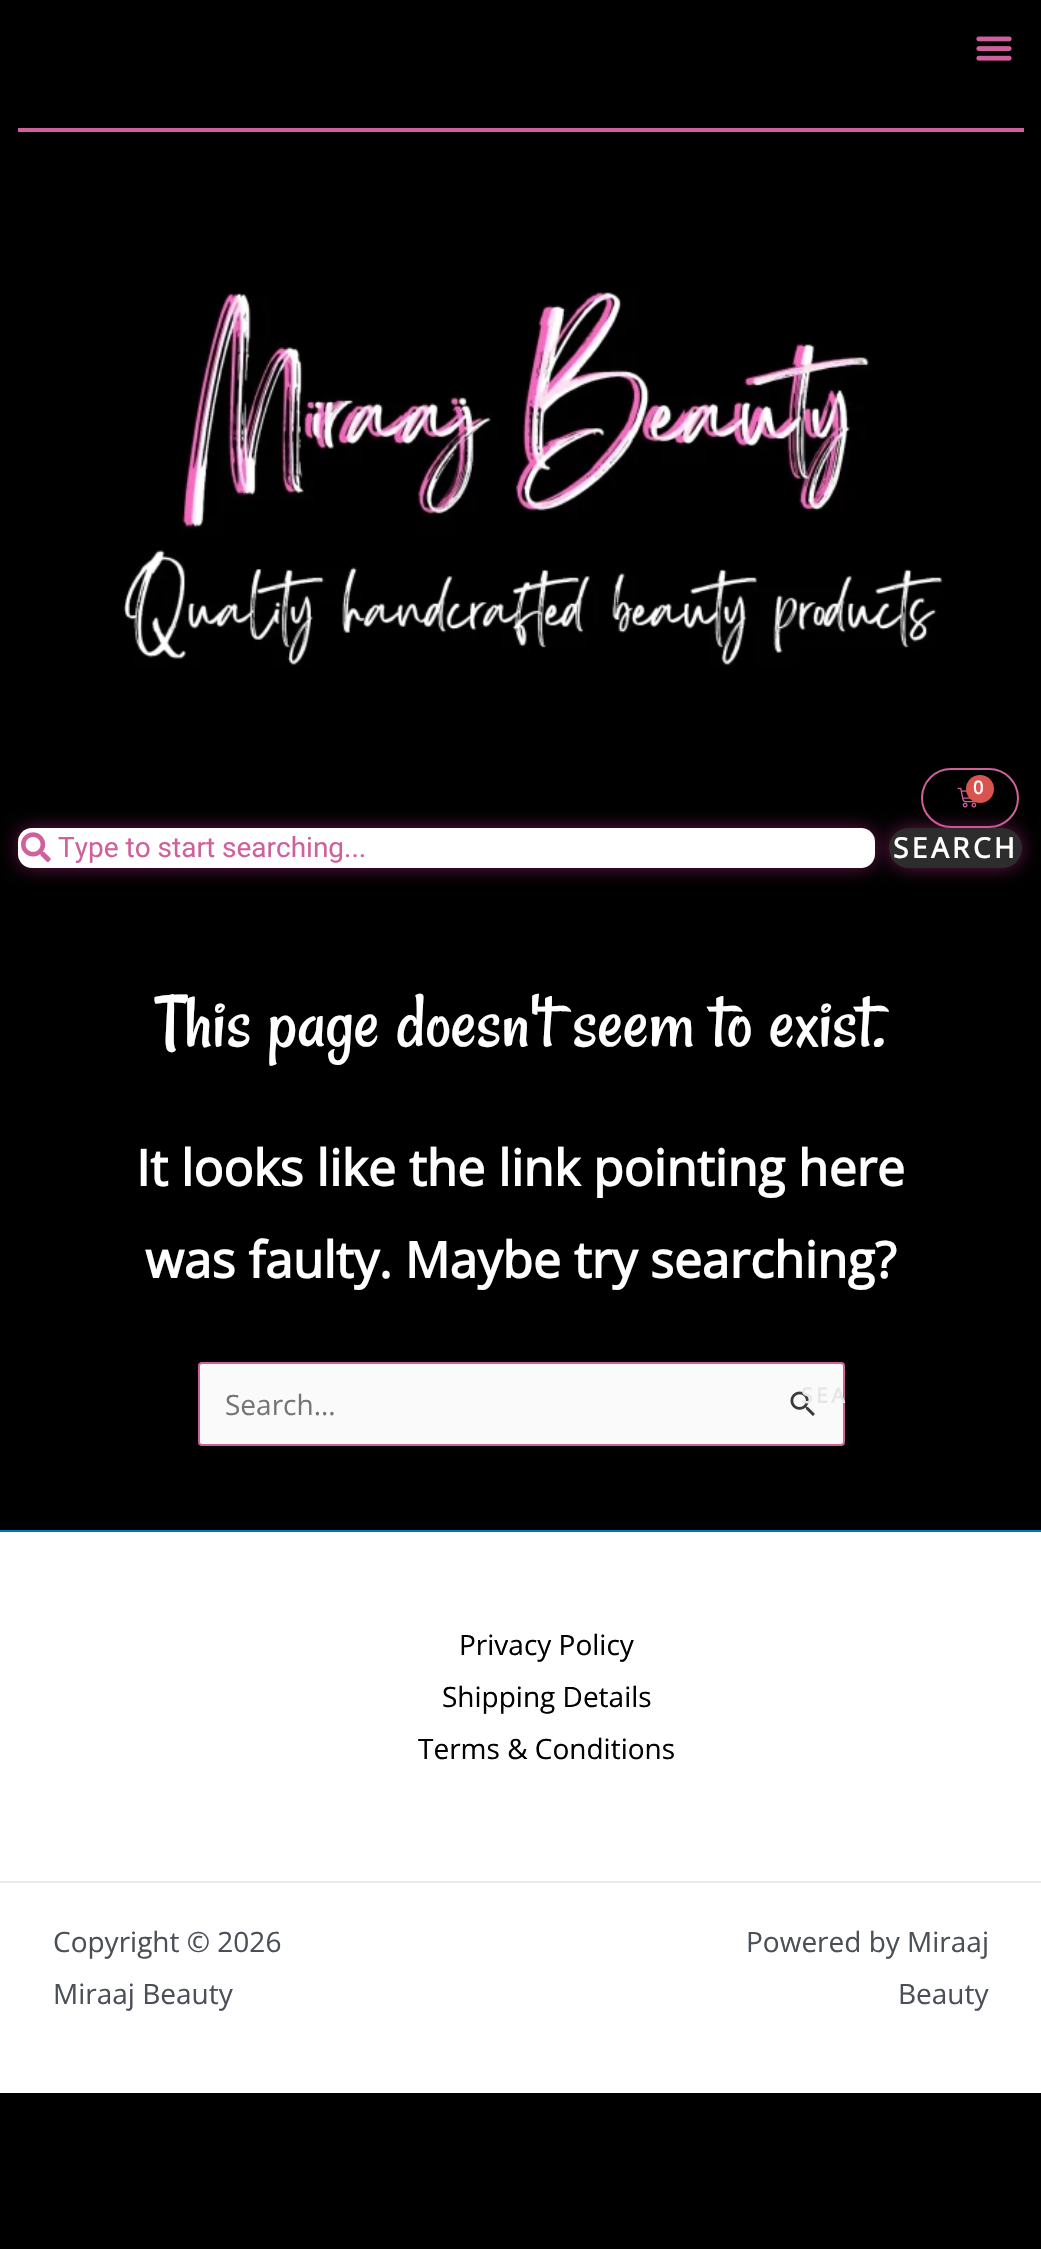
static SkFont makeFont(const char* family, int weight, float size, bool italic = false) {
  SkFontStyle style(weight, SkFontStyle::kNormal_Width,
    italic ? SkFontStyle::kItalic_Slant : SkFontStyle::kUpright_Slant);
  SkFont result(fontMgr->matchFamilyStyle(family, style), size);
  result.setSubpixel(true);
  return result;
}

static void text(SkCanvas* c, const char* s, float x, float y, const SkFont& font, SkColor color) {
  SkPaint ink(SkColor4f::FromColor(color));
  ink.setAntiAlias(true);
  c->drawString(s, x, y, font, ink);
}

static void spacedText(SkCanvas* c, const char* s, float x, float y, const SkFont& font, const SkPaint& ink, float letter, float word) {
  std::vector<SkGlyphID> glyphs(font.countText(s, strlen(s), SkTextEncoding::kUTF8));
  std::vector<float> xs(glyphs.size());
  font.textToGlyphs(s, strlen(s), SkTextEncoding::kUTF8, glyphs);
  font.getXPos(glyphs, xs, x);
  float extra = 0;
  for (size_t i = 0; i < glyphs.size(); i++) {
    xs[i] += extra;
    extra += letter + word * (glyphs[i] == font.unicharToGlyph(' '));
  }
  c->drawTextBlob(SkTextBlob::MakeFromPosHGlyphs(glyphs, xs, y, font), 0, 0, ink);
}

static void box(SkCanvas* c, float l, float t, float r, float b, SkColor color) {
  SkPaint ink(SkColor4f::FromColor(color));
  ink.setAntiAlias(true);
  c->drawRect(SkRect::MakeLTRB(l, t, r, b), ink);
}

static void roundBox(SkCanvas* c, float l, float t, float r, float b, float radius, SkColor color) {
  SkPaint ink(SkColor4f::FromColor(color));
  ink.setAntiAlias(true);
  c->drawRoundRect(SkRect::MakeLTRB(l, t, r, b), radius, radius, ink);
}

static void picture(SkCanvas* c, const char* path, float l, float t, float r, float b) {
  auto image = SkImages::DeferredFromEncodedData(SkData::MakeFromFileName(path));
  c->drawImageRect(image, SkRect::MakeLTRB(l, t, r, b), SkSamplingOptions());
}

void draw(SkCanvas* c) {
  SkPaint paint;
  paint.setAntiAlias(true);
  c->clear(0xff000000);
  picture(c, "img_01.png", 976, 36, 1012, 61);
  box(c, 18, 128, 1024, 132, 0xffce619b);
  picture(c, "img_02.png", 123, 290, 943, 667);
  paint.setStyle(SkPaint::kStroke_Style);
  paint.setStrokeWidth(2);
  paint.setColor(0xffce619b);
  c->drawRoundRect(SkRect::MakeLTRB(922, 769, 1018, 827), 29, 29, paint);
  picture(c, "img_03.png", 957, 787, 977, 808);
  paint.setStyle(SkPaint::kFill_Style);
  paint.setColor(0xffd9534f);
  c->drawCircle(980, 789, 14, paint);
  SkFont face1 = makeFont("Open Sans", 700, 18);
  paint.setColor(0xffffffff);
  spacedText(c, "0", 973, 794, face1, paint, 3.5f, 0);
  paint.setColor(0x80c8298a);
  paint.setMaskFilter(SkMaskFilter::MakeBlur(kNormal_SkBlurStyle, 9));
  c->drawRoundRect(SkRect::MakeLTRB(889, 828, 1022, 868), 20, 20, paint);
  paint.setMaskFilter(nullptr);
  roundBox(c, 889, 828, 1022, 868, 20, 0xff2d2d2d);
  paint.setColor(0x80c7258c);
  paint.setMaskFilter(SkMaskFilter::MakeBlur(kNormal_SkBlurStyle, 9));
  c->drawRoundRect(SkRect::MakeLTRB(18, 828, 875, 868), 14, 14, paint);
  paint.setMaskFilter(nullptr);
  roundBox(c, 18, 828, 875, 868, 14, 0xffffffff);
  picture(c, "img_04.png", 21, 832, 51, 863);
  SkFont face2 = makeFont("Roboto", 400, 28);
  text(c, "Type to start searching...", 58, 857, face2, 0xffce619b);
  SkFont face3 = makeFont("Open Sans", 700, 28);
  paint.setColor(0xffffffff);
  spacedText(c, "SEARCH", 893, 858, face3, paint, 3.5f, 0);
  SkFont face4 = makeFont("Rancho", 400, 78.75f);
  text(c, "This page doesn't seem to exist.", 156, 1046, face4, 0xffffffff);
  SkFont face5 = makeFont("Open Sans", 700, 49.9f);
  text(c, "It looks like the link pointing here", 136, 1186, face5, 0xffffffff);
  text(c, "was faulty. Maybe try searching?", 145, 1278, face5, 0xffffffff);
  paint.setColor(0xfffafafa);
  c->drawRoundRect(SkRect::MakeLTRB(199, 1363, 844, 1445), 3, 3, paint);
  paint.setStyle(SkPaint::kStroke_Style);
  paint.setColor(0xffce619b);
  c->drawRoundRect(SkRect::MakeLTRB(199, 1363, 844, 1445), 3, 3, paint);
  SkFont face6 = makeFont("Open Sans", 400, 28);
  text(c, "Search...", 225, 1415, face6, 0xff757575);
  picture(c, "img_05.png", 790, 1391, 815, 1416);
  SkFont face7 = makeFont("Open Sans", 700, 21);
  paint.setStyle(SkPaint::kFill_Style);
  paint.setColor(0xffe8e7e8);
  spacedText(c, "SEA", 801, 1403, face7, paint, 3.5f, 0);
  box(c, 0, 1532, 1041, 2093, 0xffffffff);
  box(c, 0, 1530, 1041, 1532, 0xff0274be);
  text(c, "Privacy Policy", 459, 1655, face6, 0xff000000);
  text(c, "Shipping Details", 442, 1707, face6, 0xff000000);
  text(c, "Terms & Conditions", 418, 1759, face6, 0xff000000);
  box(c, 0, 1881, 1041, 1883, 0xffeaeaea);
  text(c, "Copyright © 2026", 53, 1952, face6, 0xff4b4f58);
  text(c, "Miraaj Beauty", 53, 2004, face6, 0xff4b4f58);
  text(c, "Powered by Miraaj", 746, 1952, face6, 0xff4b4f58);
  text(c, "Beauty", 898, 2004, face6, 0xff4b4f58);
}
